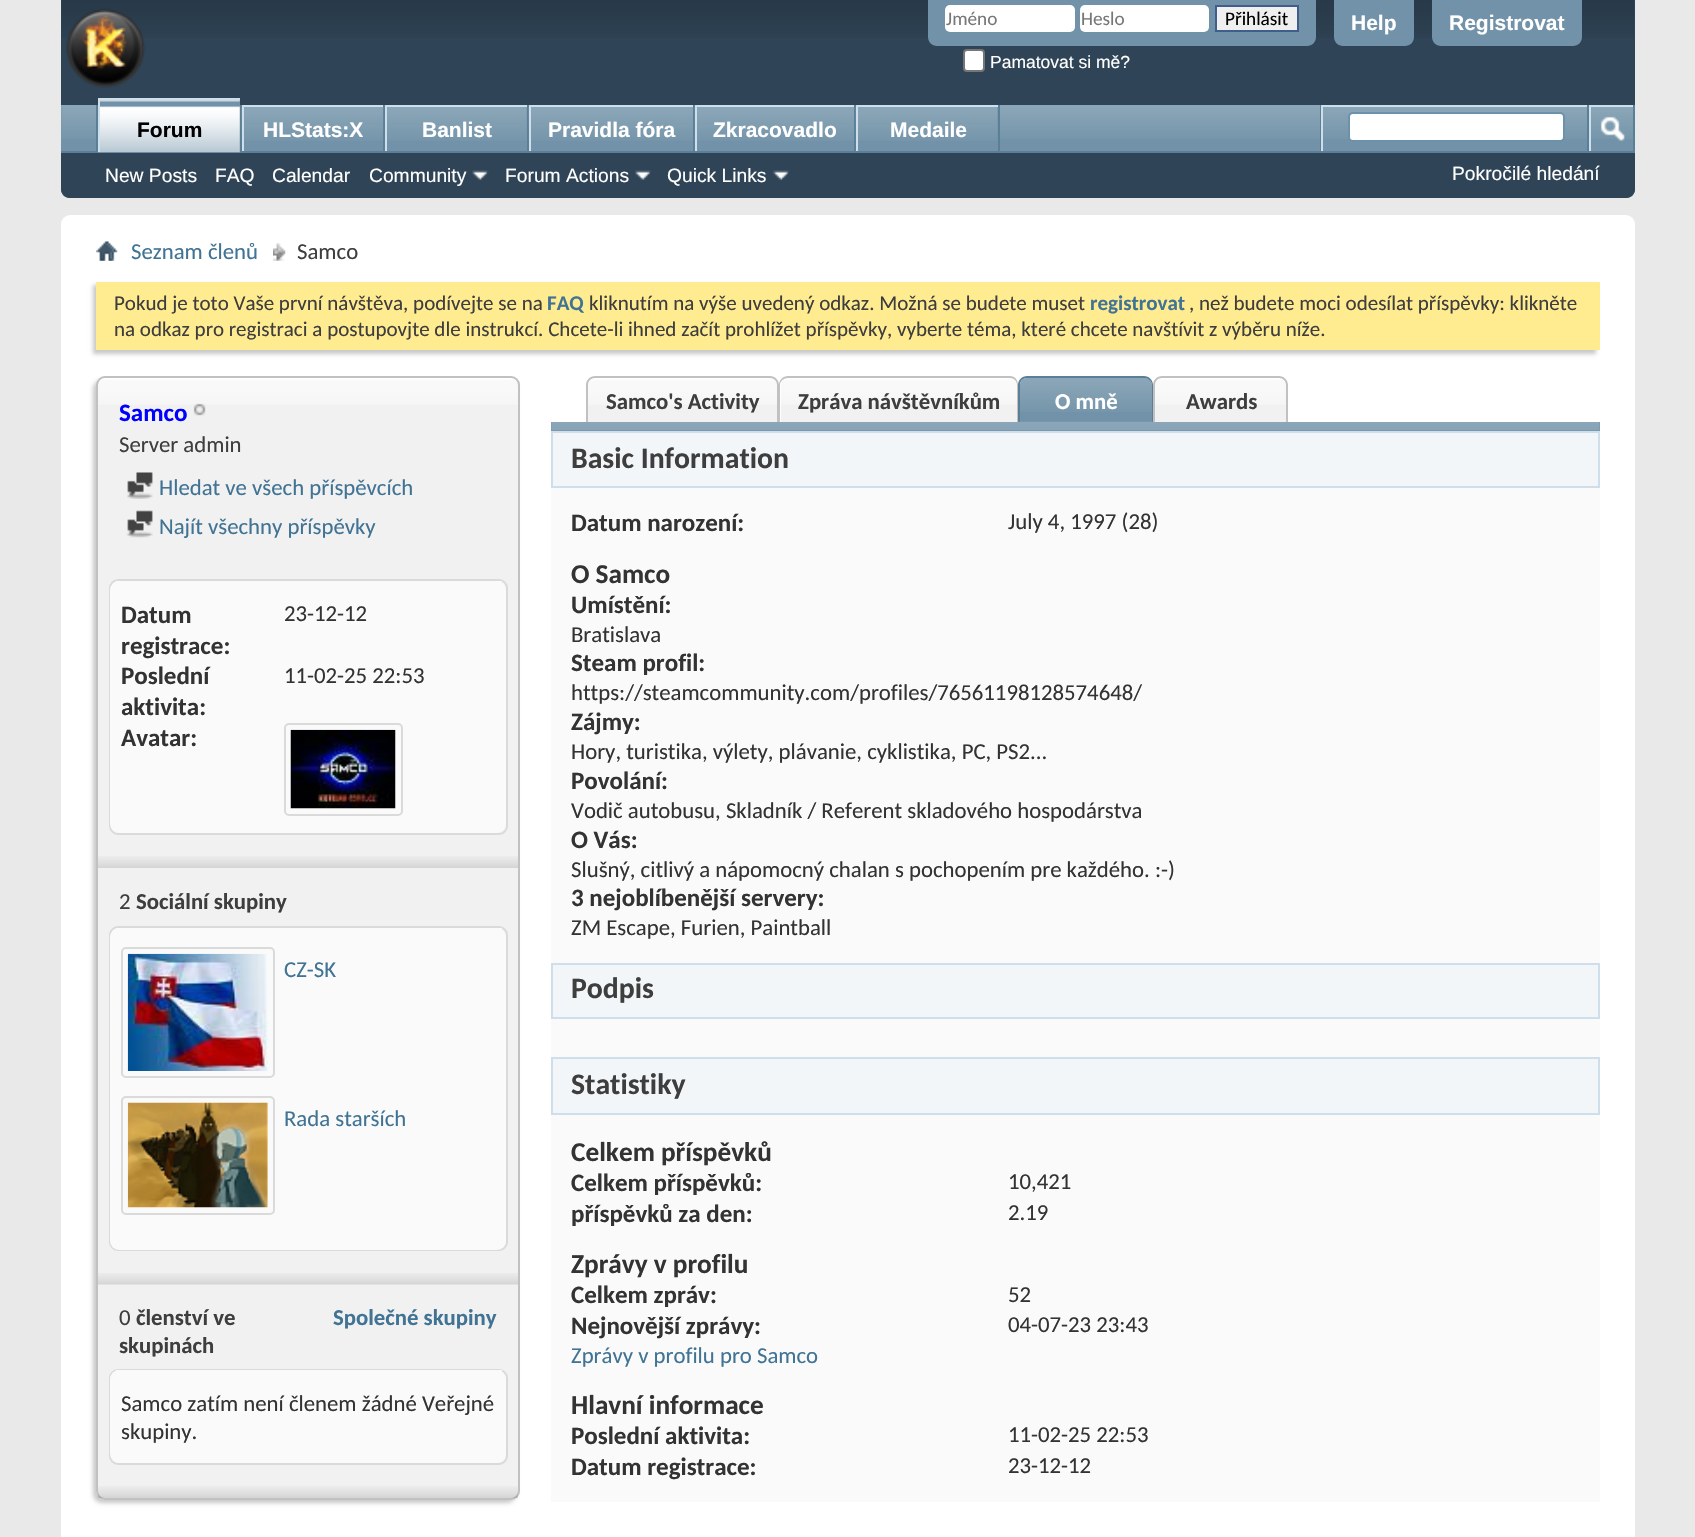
static SkFont makeFont(const char* family, int weight, float size, bool italic = false) {
  SkFontStyle style(weight, SkFontStyle::kNormal_Width,
    italic ? SkFontStyle::kItalic_Slant : SkFontStyle::kUpright_Slant);
  SkFont result(fontMgr->matchFamilyStyle(family, style), size);
  result.setSubpixel(true);
  return result;
}

static void text(SkCanvas* c, const char* s, float x, float y, const SkFont& font, SkColor color) {
  SkPaint ink(SkColor4f::FromColor(color));
  ink.setAntiAlias(true);
  c->drawString(s, x, y, font, ink);
}

static void box(SkCanvas* c, float l, float t, float r, float b, SkColor color) {
  SkPaint ink(SkColor4f::FromColor(color));
  ink.setAntiAlias(true);
  c->drawRect(SkRect::MakeLTRB(l, t, r, b), ink);
}

static void roundBox(SkCanvas* c, float l, float t, float r, float b, float radius, SkColor color) {
  SkPaint ink(SkColor4f::FromColor(color));
  ink.setAntiAlias(true);
  c->drawRoundRect(SkRect::MakeLTRB(l, t, r, b), radius, radius, ink);
}

static void picture(SkCanvas* c, const char* path, float l, float t, float r, float b) {
  auto image = SkImages::DeferredFromEncodedData(SkData::MakeFromFileName(path));
  c->drawImageRect(image, SkRect::MakeLTRB(l, t, r, b), SkSamplingOptions());
}

void draw(SkCanvas* c) {
  SkPaint paint;
  paint.setAntiAlias(true);
  c->clear(0xffe9e9e9);
  paint.setColor(0xff2f4456);
  c->drawPath(SkPathBuilder().moveTo(61, 0).lineTo(1635, 0).lineTo(1635, 189).cubicTo(1635, 194, 1631, 198, 1626, 198).lineTo(70, 198).cubicTo(65, 198, 61, 194, 61, 189).close().detach(), paint);
  picture(c, "img_01.png", 61, 0, 1634, 38);
  picture(c, "img_02.png", 66, 8, 146, 88);
  paint.setColor(0xff7192a8);
  c->drawPath(SkPathBuilder().moveTo(928, 0).lineTo(1316, 0).lineTo(1316, 37).cubicTo(1316, 42, 1312, 46, 1307, 46).lineTo(937, 46).cubicTo(932, 46, 928, 42, 928, 37).close().detach(), paint);
  roundBox(c, 945, 5, 1075, 32, 5, 0xffffffff);
  SkFont face1 = makeFont("Carlito", 400, 19.25f);
  text(c, "Jméno", 946, 25, face1, 0xff777777);
  roundBox(c, 1080, 5, 1209, 32, 5, 0xffffffff);
  text(c, "Heslo", 1081, 25, face1, 0xff777777);
  paint.setColor(0xffefefef);
  c->drawRect(SkRect::MakeLTRB(1216, 6, 1298, 31), paint);
  paint.setStyle(SkPaint::kStroke_Style);
  paint.setStrokeWidth(2);
  paint.setColor(0xff415d8d);
  c->drawRect(SkRect::MakeLTRB(1216, 6, 1298, 31), paint);
  text(c, "Přihlásit", 1225, 25, face1, 0xff000000);
  paint.setStyle(SkPaint::kFill_Style);
  paint.setColor(0xffffffff);
  c->drawRoundRect(SkRect::MakeLTRB(964, 50, 984, 71), 3, 3, paint);
  paint.setStyle(SkPaint::kStroke_Style);
  paint.setColor(0xff767676);
  c->drawRoundRect(SkRect::MakeLTRB(964, 50, 984, 71), 3, 3, paint);
  SkFont face2 = makeFont("Liberation Sans", 400, 17.5f);
  text(c, "Pamatovat si mě?", 990, 68, face2, 0xffffffff);
  paint.setStyle(SkPaint::kFill_Style);
  paint.setColor(0xff7192a8);
  c->drawPath(SkPathBuilder().moveTo(1334, 0).lineTo(1414, 0).lineTo(1414, 37).cubicTo(1414, 42, 1410, 46, 1405, 46).lineTo(1343, 46).cubicTo(1338, 46, 1334, 42, 1334, 37).close().detach(), paint);
  SkFont face3 = makeFont("Liberation Sans", 700, 21);
  text(c, "Help", 1351, 30, face3, 0xffffffff);
  c->drawPath(SkPathBuilder().moveTo(1432, 0).lineTo(1582, 0).lineTo(1582, 37).cubicTo(1582, 42, 1578, 46, 1573, 46).lineTo(1441, 46).cubicTo(1436, 46, 1432, 42, 1432, 37).close().detach(), paint);
  text(c, "Registrovat", 1449, 30, face3, 0xffffffff);
  paint.setColor(0xff2f4456);
  c->drawPath(SkPathBuilder().moveTo(61, 105).lineTo(1635, 105).lineTo(1635, 189).cubicTo(1635, 194, 1631, 198, 1626, 198).lineTo(70, 198).cubicTo(65, 198, 61, 194, 61, 189).close().detach(), paint);
  box(c, 61, 105, 1633, 151, 0xff7192a8);
  picture(c, "img_03.png", 61, 105, 1633, 139);
  box(c, 240, 105, 242, 151, 0xff5a7f97);
  box(c, 96, 105, 98, 151, 0xff5a7f97);
  box(c, 383, 105, 385, 152, 0xff5a7f97);
  box(c, 244, 107, 383, 139, 0xff7192a8);
  picture(c, "img_05.png", 241, 106, 384, 141);
  box(c, 242, 105, 383, 107, 0xffcedfeb);
  box(c, 242, 105, 244, 152, 0xffcedfeb);
  box(c, 527, 105, 529, 152, 0xff5a7f97);
  box(c, 385, 105, 527, 107, 0xffcedfeb);
  box(c, 385, 105, 387, 152, 0xffcedfeb);
  box(c, 693, 105, 695, 152, 0xff5a7f97);
  box(c, 531, 107, 693, 139, 0xff7192a8);
  picture(c, "img_07.png", 528, 106, 693, 141);
  box(c, 529, 105, 693, 107, 0xffcedfeb);
  box(c, 529, 105, 531, 152, 0xffcedfeb);
  box(c, 854, 105, 856, 152, 0xff5a7f97);
  box(c, 697, 107, 854, 139, 0xff7192a8);
  picture(c, "img_08.png", 694, 107, 854, 141);
  box(c, 695, 105, 854, 107, 0xffcedfeb);
  box(c, 695, 105, 697, 152, 0xffcedfeb);
  box(c, 998, 105, 1000, 152, 0xff5a7f97);
  box(c, 858, 107, 998, 139, 0xff7192a8);
  picture(c, "img_09.png", 855, 107, 998, 141);
  box(c, 856, 105, 998, 107, 0xffcedfeb);
  box(c, 856, 105, 858, 152, 0xffcedfeb);
  box(c, 61, 151, 1635, 153, 0xff5a7f97);
  box(c, 100, 100, 240, 152, 0xff7192a8);
  picture(c, "img_04.png", 98, 100, 240, 153);
  box(c, 98, 98, 240, 100, 0xffcedfeb);
  box(c, 98, 98, 100, 152, 0xffcedfeb);
  text(c, "Forum", 137, 137, face3, 0xff000000);
  text(c, "HLStats:X", 263, 137, face3, 0xffffffff);
  box(c, 387, 107, 527, 139, 0xff7192a8);
  picture(c, "img_06.png", 387, 107, 527, 141);
  text(c, "Banlist", 422, 137, face3, 0xffffffff);
  text(c, "Pravidla fóra", 548, 137, face3, 0xffffffff);
  text(c, "Zkracovadlo", 713, 137, face3, 0xffffffff);
  text(c, "Medaile", 890, 137, face3, 0xffffffff);
  SkFont face4 = makeFont("Liberation Sans", 400, 19.25f);
  text(c, "New Posts", 105, 182, face4, 0xffffffff);
  text(c, "FAQ", 215, 182, face4, 0xffffffff);
  text(c, "Calendar", 272, 182, face4, 0xffffffff);
  text(c, "Community", 369, 182, face4, 0xffffffff);
  picture(c, "img_10.png", 472, 170, 489, 180);
  text(c, "Forum Actions", 505, 182, face4, 0xffffffff);
  picture(c, "img_11.png", 635, 170, 651, 180);
  text(c, "Quick Links", 667, 182, face4, 0xffffffff);
  picture(c, "img_12.png", 773, 170, 790, 180);
  box(c, 1320, 105, 1321, 151, 0xff5a7f97);
  box(c, 1321, 105, 1587, 107, 0xffcedfeb);
  box(c, 1321, 105, 1323, 151, 0xffcedfeb);
  paint.setColor(0xffffffff);
  c->drawRoundRect(SkRect::MakeLTRB(1349, 113, 1564, 141), 4, 4, paint);
  paint.setStyle(SkPaint::kStroke_Style);
  paint.setColor(0xff6b91ab);
  c->drawRoundRect(SkRect::MakeLTRB(1349, 113, 1564, 141), 4, 4, paint);
  box(c, 1633, 105, 1635, 151, 0xff5a7f97);
  box(c, 1587, 105, 1589, 151, 0xff5a7f97);
  box(c, 1589, 105, 1633, 107, 0xffcedfeb);
  box(c, 1589, 105, 1591, 151, 0xffcedfeb);
  picture(c, "img_13.png", 1600, 116, 1625, 142);
  text(c, "Pokročilé hledání", 1452, 180, face4, 0xffffffff);
  roundBox(c, 61, 215, 1635, 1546, 9, 0xffffffff);
  picture(c, "img_14.png", 96, 241, 118, 261);
  picture(c, "img_15.png", 273, 243, 286, 261);
  SkFont face5 = makeFont("Carlito", 400, 22.75f);
  text(c, "Seznam členů", 131, 259, face5, 0xff417394);
  text(c, "Samco", 297, 259, face5, 0xff3e3e3e);
  paint.setStyle(SkPaint::kFill_Style);
  paint.setColor(0xffc8c8c8);
  paint.setMaskFilter(SkMaskFilter::MakeBlur(kNormal_SkBlurStyle, 2));
  c->drawRect(SkRect::MakeLTRB(93, 285, 1596, 354), paint);
  paint.setMaskFilter(nullptr);
  box(c, 96, 282, 1600, 350, 0xffffeb90);
  SkFont face6 = makeFont("Carlito", 400, 21);
  text(c, "Pokud je toto Vaše první návštěva, podívejte se na", 114, 310, face6, 0xff3e3e3e);
  SkFont face7 = makeFont("Carlito", 700, 21);
  text(c, "FAQ", 547, 310, face7, 0xff417394);
  text(c, "kliknutím na výše uvedený odkaz. Možná se budete muset", 589, 310, face6, 0xff3e3e3e);
  text(c, "registrovat", 1090, 310, face7, 0xff417394);
  text(c, ", než budete moci odesílat příspěvky: klikněte", 1189, 310, face6, 0xff3e3e3e);
  text(c, "na odkaz pro registraci a postupovjte dle instrukcí. Chcete-li ihned začít prohlížet příspěvky, vyberte téma, které chcete navštívit z výběru níže.", 114, 336, face6, 0xff3e3e3e);
  paint.setMaskFilter(SkMaskFilter::MakeBlur(kNormal_SkBlurStyle, 2));
  c->drawRoundRect(SkRect::MakeLTRB(93, 380, 516, 1503), 9, 9, paint);
  paint.setMaskFilter(nullptr);
  roundBox(c, 96, 376, 520, 1500, 9, 0xfff1f1f1);
  picture(c, "img_16.png", 96, 378, 520, 405);
  paint.setStyle(SkPaint::kStroke_Style);
  paint.setColor(0xffc1c1c1);
  c->drawRoundRect(SkRect::MakeLTRB(97, 377, 519, 1499), 8, 8, paint);
  SkFont face8 = makeFont("Carlito", 700, 25);
  text(c, "Samco", 119, 421, face8, 0xff0000ff);
  picture(c, "img_17.png", 193, 403, 206, 416);
  text(c, "Server admin", 119, 452, face5, 0xff3e3e3e);
  picture(c, "img_18.png", 127, 472, 153, 499);
  text(c, "Hledat ve všech příspěvcích", 159, 495, face5, 0xff417394);
  picture(c, "img_19.png", 126, 510, 153, 538);
  text(c, "Najít všechny příspěvky", 159, 534, face5, 0xff417394);
  paint.setColor(0xffdadada);
  c->drawRoundRect(SkRect::MakeLTRB(110, 580, 507, 834), 8, 8, paint);
  roundBox(c, 110, 581, 506, 833, 9, 0xfffafafa);
  box(c, 116, 581, 502, 582, 0xfffafafa);
  text(c, "Datum", 121, 623, face8, 0xff333333);
  text(c, "registrace:", 121, 654, face8, 0xff333333);
  text(c, "23-12-12", 284, 621, face5, 0xff333333);
  text(c, "Poslední", 121, 684, face8, 0xff333333);
  text(c, "aktivita:", 121, 715, face8, 0xff333333);
  text(c, "11-02-25 22:53", 284, 683, face5, 0xff333333);
  text(c, "Avatar:", 121, 746, face8, 0xff333333);
  c->drawRoundRect(SkRect::MakeLTRB(285, 724, 402, 815), 4, 4, paint);
  picture(c, "img_20.png", 290, 729, 396, 809);
  picture(c, "img_21.png", 98, 856, 518, 868);
  text(c, "2", 119, 909, face5, 0xff3e3e3e);
  SkFont face9 = makeFont("Carlito", 700, 22.75f);
  text(c, "Sociální skupiny", 136, 909, face9, 0xff3e3e3e);
  c->drawRoundRect(SkRect::MakeLTRB(110, 927, 507, 1250), 8, 8, paint);
  roundBox(c, 110, 928, 506, 1250, 9, 0xfffafafa);
  box(c, 116, 928, 502, 929, 0xfffafafa);
  c->drawRoundRect(SkRect::MakeLTRB(122, 948, 274, 1077), 4, 4, paint);
  picture(c, "img_22.png", 127, 953, 268, 1071);
  text(c, "CZ-SK", 284, 977, face5, 0xff417394);
  c->drawRoundRect(SkRect::MakeLTRB(122, 1097, 274, 1214), 4, 4, paint);
  picture(c, "img_23.png", 127, 1102, 268, 1208);
  text(c, "Rada starších", 284, 1126, face5, 0xff417394);
  picture(c, "img_24.png", 98, 1273, 518, 1285);
  text(c, "0", 119, 1325, face5, 0xff3e3e3e);
  text(c, "členství ve", 136, 1325, face9, 0xff3e3e3e);
  text(c, "Společné skupiny", 333, 1325, face9, 0xff417394);
  text(c, "skupinách", 119, 1353, face9, 0xff3e3e3e);
  c->drawRoundRect(SkRect::MakeLTRB(110, 1370, 507, 1464), 8, 8, paint);
  roundBox(c, 110, 1370, 506, 1463, 9, 0xfffafafa);
  box(c, 116, 1370, 502, 1372, 0xfffafafa);
  text(c, "Samco zatím není členem žádné Veřejné", 121, 1411, face5, 0xff333333);
  text(c, "skupiny.", 121, 1439, face5, 0xff333333);
  picture(c, "img_25.png", 98, 1486, 518, 1498);
  paint.setStyle(SkPaint::kFill_Style);
  paint.setColor(0xfff1f1f1);
  c->drawPath(SkPathBuilder().moveTo(595, 378).lineTo(770, 378).cubicTo(774, 378, 777, 381, 777, 385).lineTo(777, 422).lineTo(588, 422).lineTo(588, 385).cubicTo(588, 381, 591, 378, 595, 378).close().detach(), paint);
  picture(c, "img_26.png", 588, 378, 777, 405);
  paint.setColor(0xffc1c1c1);
  c->drawPath(SkPathBuilder(SkPathFillType::kEvenOdd).moveTo(595, 376).lineTo(770, 376).cubicTo(775, 376, 779, 380, 779, 385).lineTo(779, 422).lineTo(586, 422).lineTo(586, 385).cubicTo(586, 380, 590, 376, 595, 376).close().moveTo(595, 378).lineTo(770, 378).cubicTo(774, 378, 777, 381, 777, 385).lineTo(777, 422).lineTo(588, 422).lineTo(588, 385).cubicTo(588, 381, 591, 378, 595, 378).close().detach(), paint);
  text(c, "Samco's Activity", 606, 409, face9, 0xff3e3e3e);
  paint.setColor(0xfff1f1f1);
  c->drawPath(SkPathBuilder().moveTo(788, 378).lineTo(1010, 378).cubicTo(1014, 378, 1017, 381, 1017, 385).lineTo(1017, 422).lineTo(781, 422).lineTo(781, 385).cubicTo(781, 381, 784, 378, 788, 378).close().detach(), paint);
  picture(c, "img_27.png", 781, 378, 1017, 405);
  paint.setColor(0xffc1c1c1);
  c->drawPath(SkPathBuilder(SkPathFillType::kEvenOdd).moveTo(788, 376).lineTo(1010, 376).cubicTo(1015, 376, 1018, 380, 1018, 385).lineTo(1018, 422).lineTo(779, 422).lineTo(779, 385).cubicTo(779, 380, 783, 376, 788, 376).close().moveTo(788, 378).lineTo(1010, 378).cubicTo(1014, 378, 1017, 381, 1017, 385).lineTo(1017, 422).lineTo(780, 422).lineTo(780, 385).cubicTo(780, 381, 784, 378, 788, 378).close().detach(), paint);
  text(c, "Zpráva návštěvníkům", 798, 409, face9, 0xff3e3e3e);
  paint.setColor(0xff7192a8);
  c->drawPath(SkPathBuilder().moveTo(1027, 378).lineTo(1145, 378).cubicTo(1149, 378, 1152, 381, 1152, 385).lineTo(1152, 422).lineTo(1020, 422).lineTo(1020, 385).cubicTo(1020, 381, 1023, 378, 1027, 378).close().detach(), paint);
  picture(c, "img_28.png", 1020, 378, 1152, 412);
  paint.setColor(0xff5a7f97);
  c->drawPath(SkPathBuilder(SkPathFillType::kEvenOdd).moveTo(1027, 376).lineTo(1144, 376).cubicTo(1149, 376, 1153, 380, 1153, 385).lineTo(1153, 422).lineTo(1018, 422).lineTo(1018, 385).cubicTo(1018, 380, 1022, 376, 1027, 376).close().moveTo(1027, 378).lineTo(1144, 378).cubicTo(1148, 378, 1152, 381, 1152, 385).lineTo(1152, 422).lineTo(1020, 422).lineTo(1020, 385).cubicTo(1020, 381, 1023, 378, 1027, 378).close().detach(), paint);
  text(c, "O mně", 1055, 409, face9, 0xffffffff);
  paint.setColor(0xfff1f1f1);
  c->drawPath(SkPathBuilder().moveTo(1162, 378).lineTo(1279, 378).cubicTo(1283, 378, 1286, 381, 1286, 385).lineTo(1286, 422).lineTo(1155, 422).lineTo(1155, 385).cubicTo(1155, 381, 1158, 378, 1162, 378).close().detach(), paint);
  picture(c, "img_29.png", 1155, 378, 1286, 405);
  paint.setColor(0xffc1c1c1);
  c->drawPath(SkPathBuilder(SkPathFillType::kEvenOdd).moveTo(1162, 376).lineTo(1279, 376).cubicTo(1284, 376, 1288, 380, 1288, 385).lineTo(1288, 422).lineTo(1153, 422).lineTo(1153, 385).cubicTo(1153, 380, 1157, 376, 1162, 376).close().moveTo(1162, 378).lineTo(1279, 378).cubicTo(1283, 378, 1286, 381, 1286, 385).lineTo(1286, 422).lineTo(1155, 422).lineTo(1155, 385).cubicTo(1155, 381, 1158, 378, 1162, 378).close().detach(), paint);
  text(c, "Awards", 1186, 409, face9, 0xff3e3e3e);
  box(c, 551, 422, 1600, 431, 0xff7192a8);
  picture(c, "img_30.png", 551, 421, 1600, 431);
  paint.setColor(0xfff2f6f8);
  c->drawRect(SkRect::MakeLTRB(552, 432, 1599, 487), paint);
  paint.setStyle(SkPaint::kStroke_Style);
  paint.setColor(0xffcedfeb);
  c->drawRect(SkRect::MakeLTRB(552, 432, 1599, 487), paint);
  SkFont face10 = makeFont("Carlito", 700, 29.75f);
  text(c, "Basic Information", 571, 468, face10, 0xff3e3e3e);
  box(c, 551, 488, 1600, 963, 0xfffafafa);
  text(c, "Datum narození:", 571, 531, face8, 0xff333333);
  text(c, "July 4, 1997 (28)", 1008, 529, face5, 0xff333333);
  SkFont face11 = makeFont("Carlito", 700, 27.25f);
  text(c, "O Samco", 571, 583, face11, 0xff333333);
  text(c, "Umístění:", 571, 613, face8, 0xff333333);
  text(c, "Bratislava", 571, 642, face5, 0xff333333);
  text(c, "Steam profil:", 571, 671, face8, 0xff333333);
  text(c, "https://steamcommunity.com/profiles/76561198128574648/", 571, 700, face5, 0xff333333);
  text(c, "Zájmy:", 571, 730, face8, 0xff333333);
  text(c, "Hory, turistika, výlety, plávanie, cyklistika, PC, PS2...", 571, 759, face5, 0xff333333);
  text(c, "Povolání:", 571, 789, face8, 0xff333333);
  text(c, "Vodič autobusu, Skladník / Referent skladového hospodárstva", 571, 818, face5, 0xff333333);
  text(c, "O Vás:", 571, 848, face8, 0xff333333);
  text(c, "Slušný, citlivý a nápomocný chalan s pochopením pre každého. :-)", 571, 877, face5, 0xff333333);
  text(c, "3 nejoblíbenější servery:", 571, 906, face8, 0xff333333);
  text(c, "ZM Escape, Furien, Paintball", 571, 935, face5, 0xff333333);
  paint.setStyle(SkPaint::kFill_Style);
  paint.setColor(0xfff2f6f8);
  c->drawRect(SkRect::MakeLTRB(552, 964, 1599, 1018), paint);
  paint.setStyle(SkPaint::kStroke_Style);
  paint.setColor(0xffcedfeb);
  c->drawRect(SkRect::MakeLTRB(552, 964, 1599, 1018), paint);
  text(c, "Podpis", 571, 998, face10, 0xff3e3e3e);
  box(c, 551, 1019, 1600, 1057, 0xfffafafa);
  paint.setStyle(SkPaint::kFill_Style);
  paint.setColor(0xfff2f6f8);
  c->drawRect(SkRect::MakeLTRB(552, 1058, 1599, 1114), paint);
  paint.setStyle(SkPaint::kStroke_Style);
  paint.setColor(0xffcedfeb);
  c->drawRect(SkRect::MakeLTRB(552, 1058, 1599, 1114), paint);
  text(c, "Statistiky", 571, 1094, face10, 0xff3e3e3e);
  box(c, 551, 1115, 1600, 1502, 0xfffafafa);
  text(c, "Celkem příspěvků", 571, 1161, face11, 0xff333333);
  text(c, "Celkem příspěvků:", 571, 1191, face8, 0xff333333);
  text(c, "10,421", 1008, 1189, face5, 0xff333333);
  text(c, "příspěvků za den:", 571, 1222, face8, 0xff333333);
  text(c, "2.19", 1008, 1220, face5, 0xff333333);
  text(c, "Zprávy v profilu", 571, 1273, face11, 0xff333333);
  text(c, "Celkem zpráv:", 571, 1303, face8, 0xff333333);
  text(c, "52", 1008, 1302, face5, 0xff333333);
  text(c, "Nejnovější zprávy:", 571, 1334, face8, 0xff333333);
  text(c, "04-07-23 23:43", 1008, 1332, face5, 0xff333333);
  text(c, "Zprávy v profilu pro Samco", 571, 1363, face5, 0xff417394);
  text(c, "Hlavní informace", 571, 1414, face11, 0xff333333);
  text(c, "Poslední aktivita:", 571, 1444, face8, 0xff333333);
  text(c, "11-02-25 22:53", 1008, 1442, face5, 0xff333333);
  text(c, "Datum registrace:", 571, 1475, face8, 0xff333333);
  text(c, "23-12-12", 1008, 1473, face5, 0xff333333);
}
